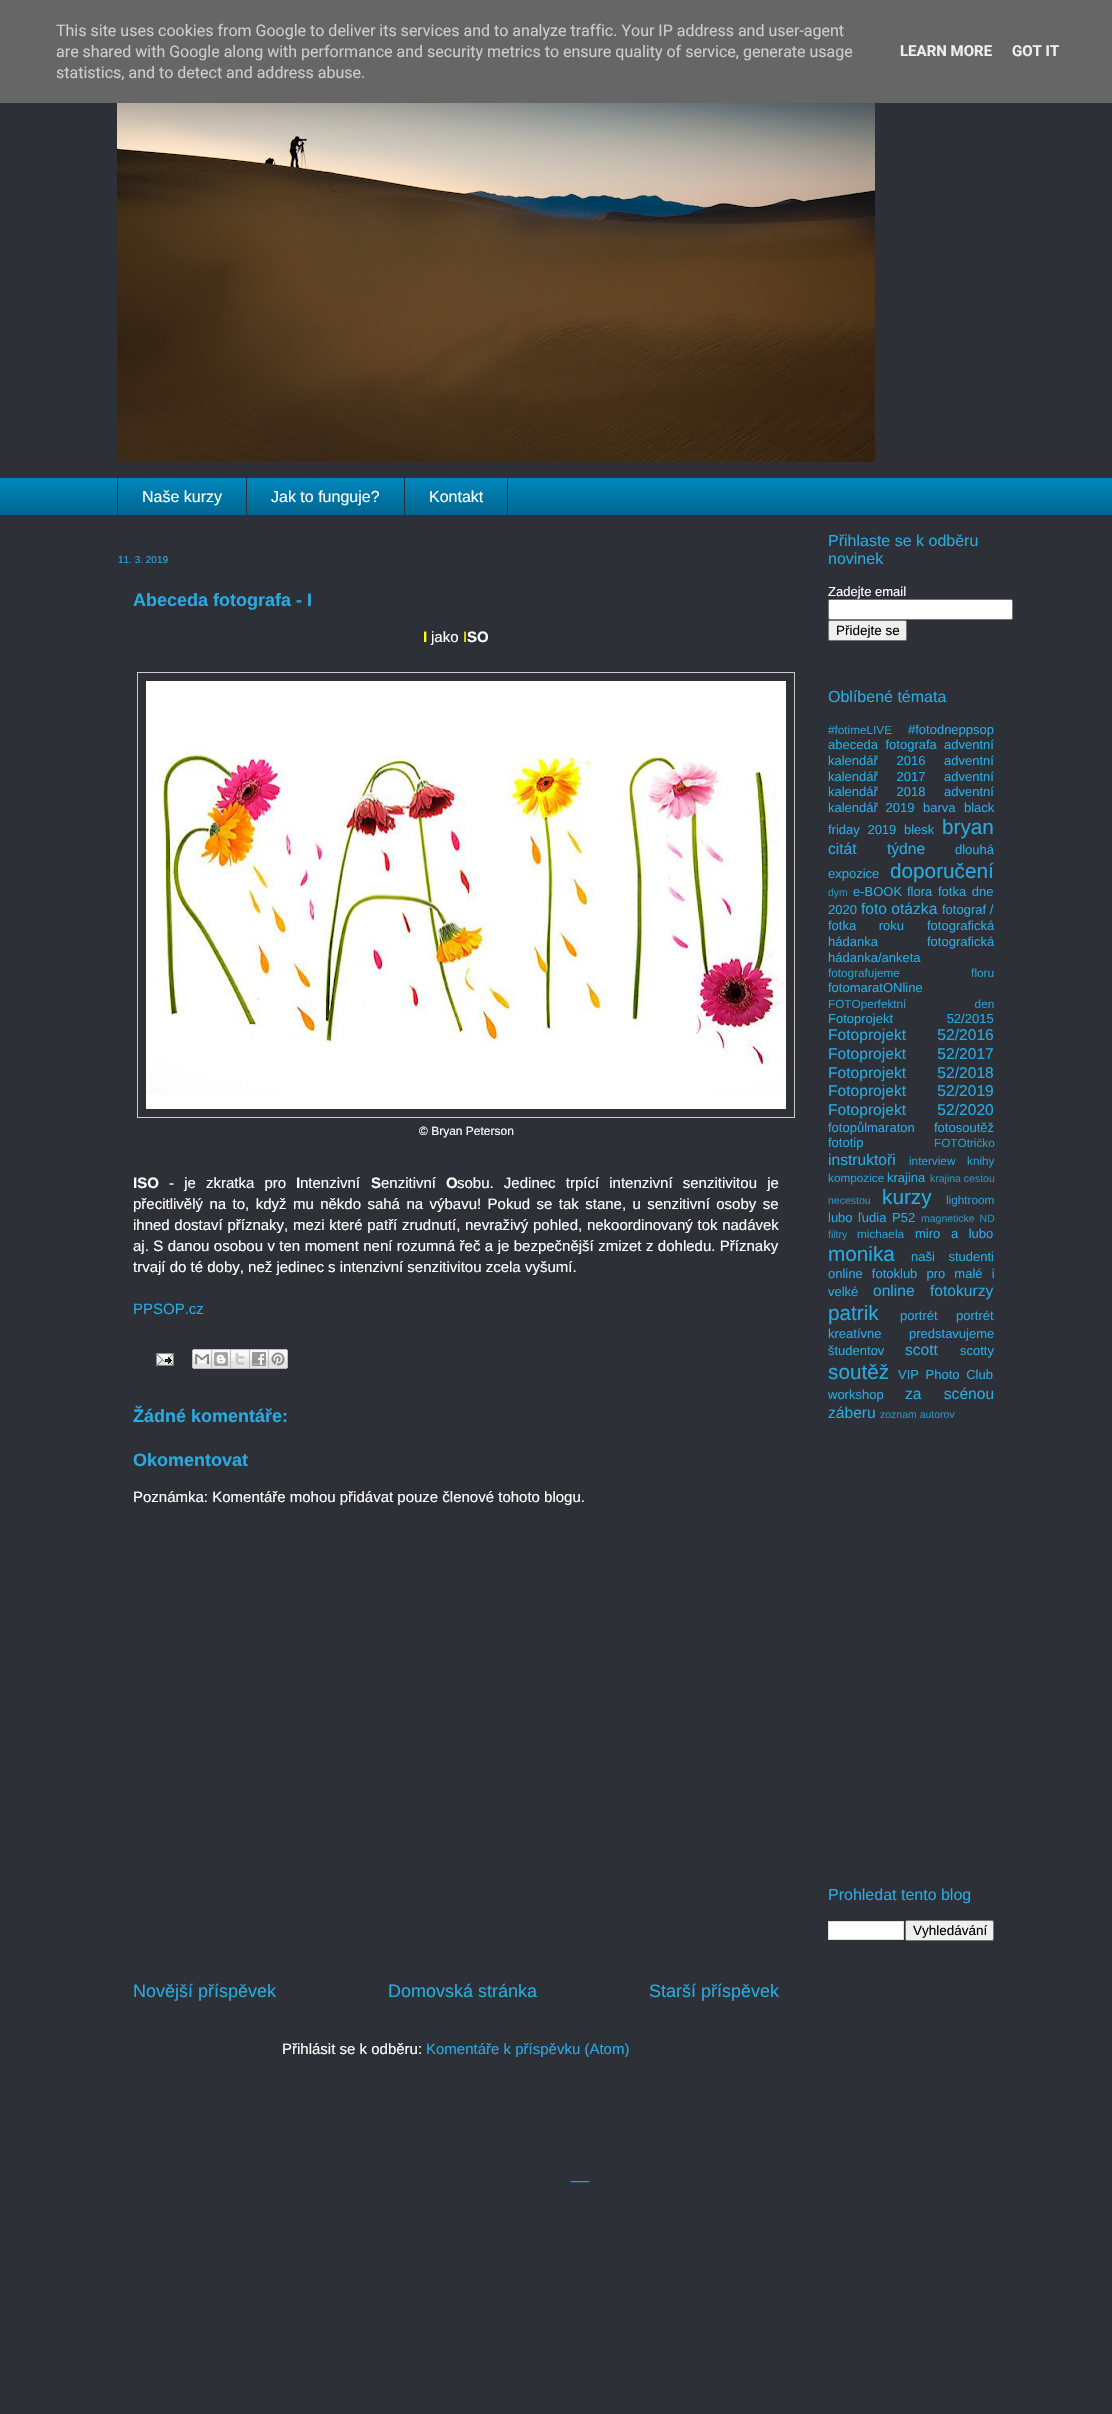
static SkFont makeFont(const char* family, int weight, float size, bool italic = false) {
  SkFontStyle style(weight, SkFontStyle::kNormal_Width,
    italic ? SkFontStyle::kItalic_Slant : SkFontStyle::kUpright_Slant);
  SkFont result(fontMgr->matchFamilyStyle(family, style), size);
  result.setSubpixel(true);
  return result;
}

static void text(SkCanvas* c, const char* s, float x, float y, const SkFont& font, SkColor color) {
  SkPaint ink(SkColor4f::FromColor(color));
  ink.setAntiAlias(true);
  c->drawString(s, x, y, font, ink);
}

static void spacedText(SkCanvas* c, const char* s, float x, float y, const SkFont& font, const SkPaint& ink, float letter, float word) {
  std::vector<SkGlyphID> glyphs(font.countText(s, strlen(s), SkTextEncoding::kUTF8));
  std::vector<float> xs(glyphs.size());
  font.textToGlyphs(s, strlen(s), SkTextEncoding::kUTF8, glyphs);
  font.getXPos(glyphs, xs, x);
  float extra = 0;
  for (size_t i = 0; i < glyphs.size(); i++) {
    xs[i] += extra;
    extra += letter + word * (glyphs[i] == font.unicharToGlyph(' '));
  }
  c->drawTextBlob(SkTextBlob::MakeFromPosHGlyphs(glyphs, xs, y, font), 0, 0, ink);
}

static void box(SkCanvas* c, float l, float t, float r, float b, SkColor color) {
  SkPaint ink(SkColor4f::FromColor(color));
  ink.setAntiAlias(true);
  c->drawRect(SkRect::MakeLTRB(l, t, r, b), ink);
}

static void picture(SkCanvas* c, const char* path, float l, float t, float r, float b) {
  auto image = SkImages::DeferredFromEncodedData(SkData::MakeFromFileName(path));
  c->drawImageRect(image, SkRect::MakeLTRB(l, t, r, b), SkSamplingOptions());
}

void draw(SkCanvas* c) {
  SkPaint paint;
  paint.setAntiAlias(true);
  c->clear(0xff2d3037);
  box(c, 0, 0, 1112, 103, 0xff666666);
  SkFont face1 = makeFont("Roboto", 400, 16);
  text(c, "This site uses cookies from Google to deliver its services and to analyze traffic. Your IP address and user-agent", 56, 36, face1, 0xffcccccc);
  text(c, "are shared with Google along with performance and security metrics to ensure quality of service, generate usage", 56, 57, face1, 0xffcccccc);
  text(c, "statistics, and to detect and address abuse.", 56, 78, face1, 0xffcccccc);
  SkFont face2 = makeFont("Roboto", 700, 15);
  text(c, "LEARN MORE", 900, 56, face2, 0xffeeeeee);
  text(c, "GOT IT", 1012, 56, face2, 0xffeeeeee);
  picture(c, "img_01.png", 117, 103, 875, 462);
  box(c, 0, 478, 1112, 515, 0xff0185bb);
  picture(c, "img_02.png", 0, 483, 1112, 515);
  box(c, 117, 477, 118, 516, 0xff2d3037);
  SkFont face3 = makeFont("Liberation Sans", 400, 16);
  text(c, "Naše kurzy", 142, 502, face3, 0xffffffff);
  box(c, 246, 477, 247, 516, 0xff2d3037);
  text(c, "Jak to funguje?", 271, 502, face3, 0xffffffff);
  paint.setStyle(SkPaint::kStroke_Style);
  paint.setStrokeWidth(1);
  paint.setColor(0xff2d3037);
  c->drawRect(SkRect::MakeLTRB(404.5f, 477.5f, 507.5f, 515.5f), paint);
  text(c, "Kontakt", 429, 502, face3, 0xffffffff);
  SkFont face4 = makeFont("Liberation Sans", 400, 10);
  text(c, "11. 3. 2019", 118, 563, face4, 0xff29aae1);
  SkFont face5 = makeFont("Liberation Sans", 700, 18);
  text(c, "Abeceda fotografa - I", 133, 606, face5, 0xff29aae1);
  SkFont face6 = makeFont("Liberation Sans", 700, 15);
  text(c, "I", 423, 642, face6, 0xffffff00);
  SkFont face7 = makeFont("Liberation Sans", 400, 15);
  text(c, "jako", 431, 642, face7, 0xffffffff);
  text(c, "I", 463, 642, face7, 0xffffff00);
  text(c, "SO", 467, 642, face6, 0xffffffff);
  paint.setColor(0xffcccccc);
  c->drawRect(SkRect::MakeLTRB(137.5f, 672.5f, 794.5f, 1117.5f), paint);
  picture(c, "img_03.png", 146, 681, 786, 1109);
  SkFont face8 = makeFont("Liberation Sans", 400, 12);
  text(c, "© Bryan Peterson", 419, 1135, face8, 0xffffffff);
  text(c, "ISO", 133, 1188, face6, 0xffffffff);
  paint.setStyle(SkPaint::kFill_Style);
  paint.setColor(0xffffffff);
  spacedText(c, "- je zkratka pro", 169, 1188, face7, paint, 0, 6);
  text(c, "I", 296, 1188, face6, 0xffffffff);
  text(c, "ntenzivní", 300, 1188, face7, 0xffffffff);
  text(c, "S", 371, 1188, face6, 0xffffffff);
  text(c, "enzitivní", 381, 1188, face7, 0xffffffff);
  text(c, "O", 446, 1188, face6, 0xffffffff);
  spacedText(c, "sobu. Jedinec trpící intenzivní senzitivitou je", 457, 1188, face7, paint, 0, 6);
  spacedText(c, "přecitlivělý na to, když mu někdo sahá na výbavu! Pokud se tak stane, u senzitivní osoby se", 133, 1209, face7, paint, 0, 2.25f);
  spacedText(c, "ihned dostaví příznaky, mezi které patří zrudnutí, nevraživý pohled, nekoordinovaný tok nadávek", 133, 1230, face7, paint, 0, 0.5f);
  spacedText(c, "aj. S danou osobou v ten moment není rozumná řeč a je bezpečnější zmizet z dohledu. Příznaky", 133, 1251, face7, paint, 0, 0.25f);
  text(c, "trvají do té doby, než jedinec s intenzivní senzitivitou zcela vyšumí.", 133, 1272, face7, 0xffffffff);
  text(c, "PPSOP.cz", 133, 1314, face7, 0xff29aae1);
  picture(c, "img_04.png", 156, 1353, 174, 1366);
  picture(c, "img_05.png", 192, 1349, 212, 1369);
  picture(c, "img_06.png", 212, 1349, 231, 1369);
  picture(c, "img_07.png", 231, 1349, 250, 1369);
  picture(c, "img_08.png", 250, 1349, 269, 1369);
  picture(c, "img_09.png", 269, 1349, 288, 1369);
  text(c, "Žádné komentáře:", 133, 1422, face5, 0xff29aae1);
  text(c, "Okomentovat", 133, 1466, face5, 0xff29aae1);
  text(c, "Poznámka: Komentáře mohou přidávat pouze členové tohoto blogu.", 133, 1502, face7, 0xffffffff);
  SkFont face9 = makeFont("Liberation Sans", 400, 18);
  text(c, "Novější příspěvek", 133, 1997, face9, 0xff29aae1);
  text(c, "Domovská stránka", 388, 1997, face9, 0xff29aae1);
  text(c, "Starší příspěvek", 649, 1997, face9, 0xff29aae1);
  text(c, "Přihlásit se k odběru:", 282, 2054, face7, 0xffffffff);
  text(c, "Komentáře k příspěvku (Atom)", 426, 2054, face7, 0xff29aae1);
  text(c, "Přihlaste se k odběru", 828, 546, face3, 0xff29aae1);
  text(c, "novinek", 828, 564, face3, 0xff29aae1);
  SkFont face10 = makeFont("Liberation Sans", 400, 13);
  text(c, "Zadejte email", 828, 596, face10, 0xffffffff);
  c->drawRoundRect(SkRect::MakeLTRB(828.5f, 599.5f, 1012.5f, 619.5f), 1.5f, 1.5f, paint);
  paint.setStyle(SkPaint::kStroke_Style);
  paint.setColor(0xff767676);
  c->drawRoundRect(SkRect::MakeLTRB(828.5f, 599.5f, 1012.5f, 619.5f), 1.5f, 1.5f, paint);
  paint.setStyle(SkPaint::kFill_Style);
  paint.setColor(0xffefefef);
  c->drawRoundRect(SkRect::MakeLTRB(828.5f, 620.5f, 906.5f, 640.5f), 1.5f, 1.5f, paint);
  paint.setStyle(SkPaint::kStroke_Style);
  paint.setColor(0xff767676);
  c->drawRoundRect(SkRect::MakeLTRB(828.5f, 620.5f, 906.5f, 640.5f), 1.5f, 1.5f, paint);
  SkFont face11 = makeFont("Liberation Sans", 400, 13.5f);
  text(c, "Přidejte se", 836, 635, face11, 0xff000000);
  text(c, "Oblíbené témata", 828, 702, face3, 0xff29aae1);
  SkFont face12 = makeFont("Liberation Sans", 400, 11.75f);
  text(c, "#fotimeLIVE", 828, 734, face12, 0xff299ed0);
  text(c, "#fotodneppsop", 908, 734, face10, 0xff29aae1);
  paint.setStyle(SkPaint::kFill_Style);
  paint.setColor(0xff29aae1);
  spacedText(c, "abeceda fotografa", 828, 749, face10, paint, 0, 4);
  text(c, "adventní", 944, 749, face10, 0xff29aae1);
  spacedText(c, "kalendář 2016", 828, 765, face10, paint, 0, 15);
  text(c, "adventní", 944, 765, face10, 0xff29aae1);
  spacedText(c, "kalendář 2017", 828, 781, face10, paint, 0, 15);
  text(c, "adventní", 944, 781, face10, 0xff29aae1);
  spacedText(c, "kalendář 2018", 828, 796, face10, paint, 0, 15);
  text(c, "adventní", 944, 796, face10, 0xff29aae1);
  spacedText(c, "kalendář 2019", 828, 812, face10, paint, 0, 4);
  text(c, "barva", 923, 812, face10, 0xff29aae1);
  text(c, "black", 964, 812, face10, 0xff29aae1);
  spacedText(c, "friday 2019", 828, 834, face10, paint, 0, 4);
  text(c, "blesk", 904, 834, face10, 0xff29aae1);
  SkFont face13 = makeFont("Liberation Sans", 400, 20.75f);
  text(c, "bryan", 942, 834, face13, 0xff29aae1);
  SkFont face14 = makeFont("Liberation Sans", 400, 15.6f);
  spacedText(c, "citát týdne", 828, 854, face14, paint, 0, 26);
  text(c, "dlouhá", 955, 854, face10, 0xff29aae1);
  text(c, "expozice", 828, 878, face10, 0xff29aae1);
  text(c, "doporučení", 890, 878, face13, 0xff29aae1);
  SkFont face15 = makeFont("Liberation Sans", 400, 10.5f);
  text(c, "dym", 828, 896, face15, 0xff2a92bf);
  text(c, "e-BOOK", 853, 896, face10, 0xff29aae1);
  text(c, "flora", 907, 896, face10, 0xff29aae1);
  spacedText(c, "fotka dne", 938, 896, face10, paint, 0, 2);
  text(c, "2020", 828, 914, face10, 0xff29aae1);
  text(c, "foto otázka", 861, 914, face14, 0xff29aae1);
  text(c, "fotograf /", 942, 914, face10, 0xff29aae1);
  spacedText(c, "fotka roku", 828, 930, face10, paint, 0, 19);
  text(c, "fotografická", 927, 930, face10, 0xff29aae1);
  text(c, "hádanka", 828, 946, face10, 0xff29aae1);
  text(c, "fotografická", 927, 946, face10, 0xff29aae1);
  text(c, "hádanka/anketa", 828, 962, face10, 0xff29aae1);
  paint.setColor(0xff299ed0);
  spacedText(c, "fotografujeme floru", 828, 977, face12, paint, 0, 68);
  text(c, "fotomaratONline", 828, 992, face10, 0xff29aae1);
  spacedText(c, "FOTOperfektní den", 828, 1008, face12, paint, 0, 65);
  paint.setColor(0xff29aae1);
  spacedText(c, "Fotoprojekt 52/2015", 828, 1023, face10, paint, 0, 50);
  spacedText(c, "Fotoprojekt 52/2016", 828, 1040, face14, paint, 0, 27);
  spacedText(c, "Fotoprojekt 52/2017", 828, 1059, face14, paint, 0, 27);
  spacedText(c, "Fotoprojekt 52/2018", 828, 1078, face14, paint, 0, 27);
  spacedText(c, "Fotoprojekt 52/2019", 828, 1096, face14, paint, 0, 27);
  spacedText(c, "Fotoprojekt 52/2020", 828, 1115, face14, paint, 0, 27);
  text(c, "fotopůlmaraton", 828, 1132, face10, 0xff29aae1);
  text(c, "fotosoutěž", 934, 1132, face10, 0xff29aae1);
  text(c, "fototip", 828, 1147, face10, 0xff29aae1);
  text(c, "FOTOtričko", 934, 1147, face12, 0xff299ed0);
  text(c, "instruktoři", 828, 1165, face14, 0xff29aae1);
  text(c, "interview", 909, 1165, face12, 0xff299ed0);
  text(c, "knihy", 967, 1165, face12, 0xff299ed0);
  text(c, "kompozice", 828, 1182, face12, 0xff299ed0);
  text(c, "krajina", 887, 1182, face10, 0xff29aae1);
  text(c, "krajina cestou", 930, 1182, face15, 0xff2a92bf);
  text(c, "necestou", 828, 1204, face15, 0xff2a92bf);
  text(c, "kurzy", 882, 1204, face13, 0xff29aae1);
  text(c, "lightroom", 946, 1204, face12, 0xff299ed0);
  text(c, "lubo", 828, 1222, face10, 0xff29aae1);
  spacedText(c, "ľudia P52", 858, 1222, face10, paint, 0, 2);
  paint.setColor(0xff2a92bf);
  spacedText(c, "magneticke ND", 921, 1222, face15, paint, 0, 2);
  text(c, "filtry", 828, 1238, face15, 0xff2a92bf);
  text(c, "michaela", 857, 1238, face12, 0xff299ed0);
  paint.setColor(0xff29aae1);
  spacedText(c, "miro a lubo", 915, 1238, face10, paint, 0, 7);
  text(c, "monika", 828, 1261, face13, 0xff29aae1);
  spacedText(c, "naši studenti", 911, 1261, face10, paint, 0, 10);
  spacedText(c, "online fotoklub pro malé i", 828, 1278, face10, paint, 0, 5.5f);
  text(c, "velké", 828, 1296, face10, 0xff29aae1);
  spacedText(c, "online fotokurzy", 873, 1296, face14, paint, 0, 11);
  text(c, "patrik", 828, 1320, face13, 0xff29aae1);
  text(c, "portrét", 900, 1320, face10, 0xff29aae1);
  text(c, "portrét", 956, 1320, face10, 0xff29aae1);
  text(c, "kreatívne", 828, 1338, face10, 0xff29aae1);
  text(c, "predstavujeme", 909, 1338, face10, 0xff29aae1);
  text(c, "študentov", 828, 1355, face10, 0xff29aae1);
  text(c, "scott", 905, 1355, face14, 0xff29aae1);
  text(c, "scotty", 960, 1355, face10, 0xff29aae1);
  text(c, "soutěž", 828, 1379, face13, 0xff29aae1);
  spacedText(c, "VIP Photo Club", 898, 1379, face10, paint, 0, 3);
  text(c, "workshop", 828, 1399, face10, 0xff29aae1);
  spacedText(c, "za scénou", 905, 1399, face14, paint, 0, 18);
  text(c, "záberu", 828, 1418, face14, 0xff29aae1);
  text(c, "zoznam autorov", 880, 1418, face15, 0xff2a92bf);
  text(c, "Prohledat tento blog", 828, 1900, face3, 0xff29aae1);
  paint.setColor(0xffffffff);
  c->drawRect(SkRect::MakeLTRB(828.5f, 1921.5f, 903.5f, 1939.5f), paint);
  paint.setStyle(SkPaint::kStroke_Style);
  paint.setColor(0xffdddddd);
  c->drawRect(SkRect::MakeLTRB(828.5f, 1921.5f, 903.5f, 1939.5f), paint);
  paint.setStyle(SkPaint::kFill_Style);
  paint.setColor(0xffefefef);
  c->drawRoundRect(SkRect::MakeLTRB(905.5f, 1920.5f, 993.5f, 1940.5f), 1.5f, 1.5f, paint);
  paint.setStyle(SkPaint::kStroke_Style);
  paint.setColor(0xff767676);
  c->drawRoundRect(SkRect::MakeLTRB(905.5f, 1920.5f, 993.5f, 1940.5f), 1.5f, 1.5f, paint);
  text(c, "Vyhledávání", 913, 1935, face11, 0xff000000);
  text(c, "__", 571, 2179, face3, 0xff29aae1);
}
